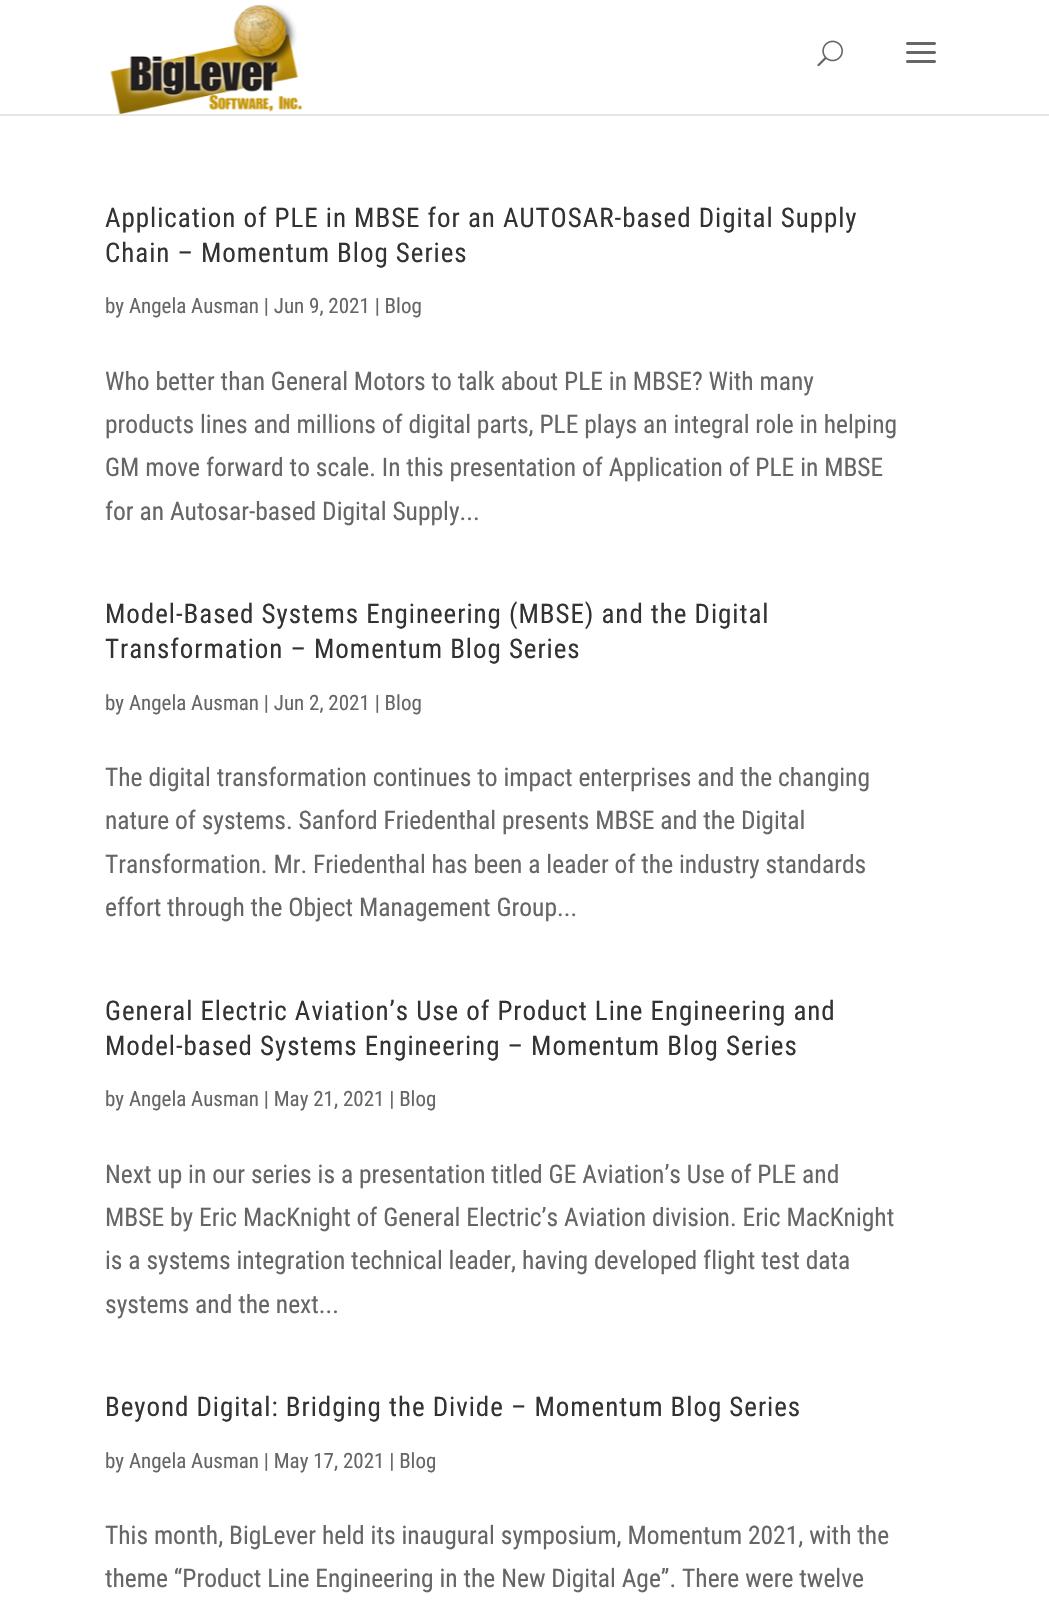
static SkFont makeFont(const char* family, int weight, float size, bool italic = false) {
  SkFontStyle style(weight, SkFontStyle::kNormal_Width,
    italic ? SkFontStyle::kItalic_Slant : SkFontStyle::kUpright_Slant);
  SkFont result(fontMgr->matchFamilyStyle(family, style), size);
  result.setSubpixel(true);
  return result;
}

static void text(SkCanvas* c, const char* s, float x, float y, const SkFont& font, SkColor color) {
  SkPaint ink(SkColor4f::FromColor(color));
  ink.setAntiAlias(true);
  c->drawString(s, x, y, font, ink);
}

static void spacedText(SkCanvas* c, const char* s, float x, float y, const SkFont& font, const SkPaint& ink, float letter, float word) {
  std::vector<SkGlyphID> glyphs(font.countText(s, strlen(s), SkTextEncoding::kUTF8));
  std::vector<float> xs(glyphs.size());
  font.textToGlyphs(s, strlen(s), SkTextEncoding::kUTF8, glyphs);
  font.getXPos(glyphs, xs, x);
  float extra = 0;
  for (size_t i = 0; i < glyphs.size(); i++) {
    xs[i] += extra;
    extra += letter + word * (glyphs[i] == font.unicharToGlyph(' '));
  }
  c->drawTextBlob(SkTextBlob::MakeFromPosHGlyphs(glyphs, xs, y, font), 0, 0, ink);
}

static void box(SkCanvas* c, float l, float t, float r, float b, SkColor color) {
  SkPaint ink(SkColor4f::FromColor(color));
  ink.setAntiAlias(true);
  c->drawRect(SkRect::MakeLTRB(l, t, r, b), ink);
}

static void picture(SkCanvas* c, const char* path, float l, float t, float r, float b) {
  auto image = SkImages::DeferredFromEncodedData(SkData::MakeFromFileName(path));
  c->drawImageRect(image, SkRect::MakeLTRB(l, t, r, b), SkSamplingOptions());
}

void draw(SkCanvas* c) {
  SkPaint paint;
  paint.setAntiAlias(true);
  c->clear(0xffffffff);
  box(c, 0, 114, 1049, 116, 0xffe6e6e6);
  picture(c, "img_01.png", 110, 4, 302, 114);
  picture(c, "img_02.png", 817, 40, 843, 67);
  picture(c, "img_03.png", 906, 42, 936, 63);
  SkFont face1 = makeFont("Roboto Condensed", 400, 27);
  paint.setColor(0xff333333);
  spacedText(c, "Application of PLE in MBSE for an AUTOSAR-based Digital Supply", 105, 227, face1, paint, 0.95f, 0);
  spacedText(c, "Chain – Momentum Blog Series", 105, 262, face1, paint, 0.95f, 0);
  SkFont face2 = makeFont("Roboto Condensed", 400, 21);
  text(c, "by Angela Ausman | Jun 9, 2021 | Blog", 105, 313, face2, 0xff666666);
  SkFont face3 = makeFont("Roboto Condensed", 400, 25.5f);
  text(c, "Who better than General Motors to talk about PLE in MBSE? With many", 105, 390, face3, 0xff666666);
  text(c, "products lines and millions of digital parts, PLE plays an integral role in helping", 105, 433, face3, 0xff666666);
  text(c, "GM move forward to scale. In this presentation of Application of PLE in MBSE", 105, 476, face3, 0xff666666);
  text(c, "for an Autosar-based Digital Supply...", 105, 520, face3, 0xff666666);
  spacedText(c, "Model-Based Systems Engineering (MBSE) and the Digital", 105, 623, face1, paint, 0.95f, 0);
  spacedText(c, "Transformation – Momentum Blog Series", 105, 658, face1, paint, 0.95f, 0);
  text(c, "by Angela Ausman | Jun 2, 2021 | Blog", 105, 710, face2, 0xff666666);
  text(c, "The digital transformation continues to impact enterprises and the changing", 105, 786, face3, 0xff666666);
  text(c, "nature of systems. Sanford Friedenthal presents MBSE and the Digital", 105, 829, face3, 0xff666666);
  text(c, "Transformation. Mr. Friedenthal has been a leader of the industry standards", 105, 873, face3, 0xff666666);
  text(c, "effort through the Object Management Group...", 105, 916, face3, 0xff666666);
  spacedText(c, "General Electric Aviation’s Use of Product Line Engineering and", 105, 1020, face1, paint, 0.95f, 0);
  spacedText(c, "Model-based Systems Engineering – Momentum Blog Series", 105, 1055, face1, paint, 0.95f, 0);
  text(c, "by Angela Ausman | May 21, 2021 | Blog", 105, 1106, face2, 0xff666666);
  text(c, "Next up in our series is a presentation titled GE Aviation’s Use of PLE and", 105, 1183, face3, 0xff666666);
  text(c, "MBSE by Eric MacKnight of General Electric’s Aviation division. Eric MacKnight", 105, 1226, face3, 0xff666666);
  text(c, "is a systems integration technical leader, having developed flight test data", 105, 1269, face3, 0xff666666);
  text(c, "systems and the next...", 105, 1313, face3, 0xff666666);
  spacedText(c, "Beyond Digital: Bridging the Divide – Momentum Blog Series", 105, 1416, face1, paint, 0.95f, 0);
  text(c, "by Angela Ausman | May 17, 2021 | Blog", 105, 1468, face2, 0xff666666);
  text(c, "This month, BigLever held its inaugural symposium, Momentum 2021, with the", 105, 1544, face3, 0xff666666);
  text(c, "theme “Product Line Engineering in the New Digital Age”. There were twelve", 105, 1587, face3, 0xff666666);
}
